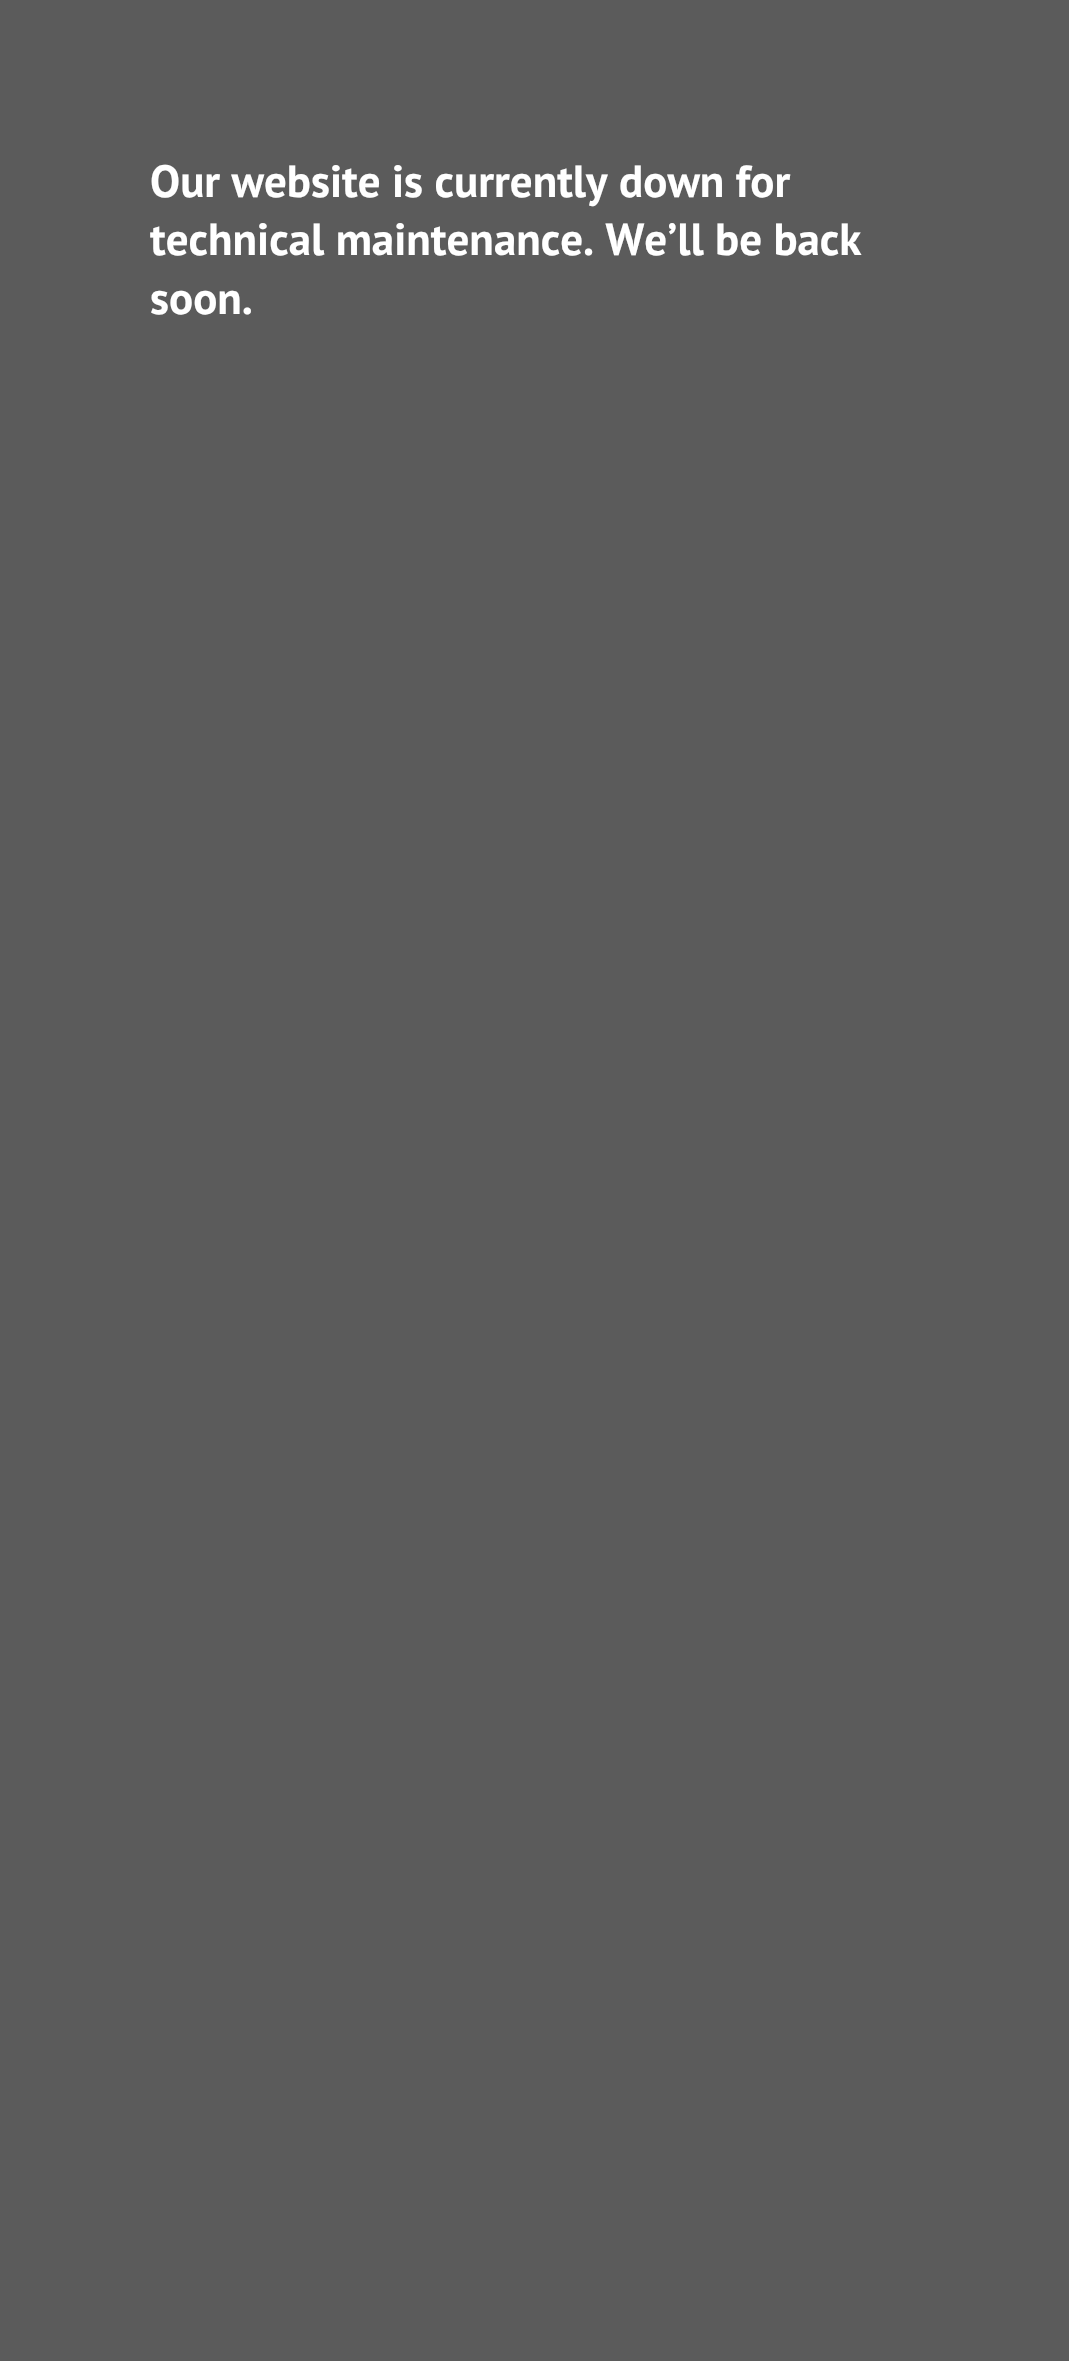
static SkFont makeFont(const char* family, int weight, float size, bool italic = false) {
  SkFontStyle style(weight, SkFontStyle::kNormal_Width,
    italic ? SkFontStyle::kItalic_Slant : SkFontStyle::kUpright_Slant);
  SkFont result(fontMgr->matchFamilyStyle(family, style), size);
  result.setSubpixel(true);
  return result;
}

static void text(SkCanvas* c, const char* s, float x, float y, const SkFont& font, SkColor color) {
  SkPaint ink(SkColor4f::FromColor(color));
  ink.setAntiAlias(true);
  c->drawString(s, x, y, font, ink);
}

void draw(SkCanvas* c) {
  SkPaint paint;
  paint.setAntiAlias(true);
  c->clear(0xff5b5b5b);
  SkFont face1 = makeFont("PT Sans", 700, 45);
  text(c, "Our website is currently down for", 150, 197, face1, 0xffffffff);
  text(c, "technical maintenance. We’ll be back", 150, 255, face1, 0xffffffff);
  text(c, "soon.", 150, 314, face1, 0xffffffff);
}
